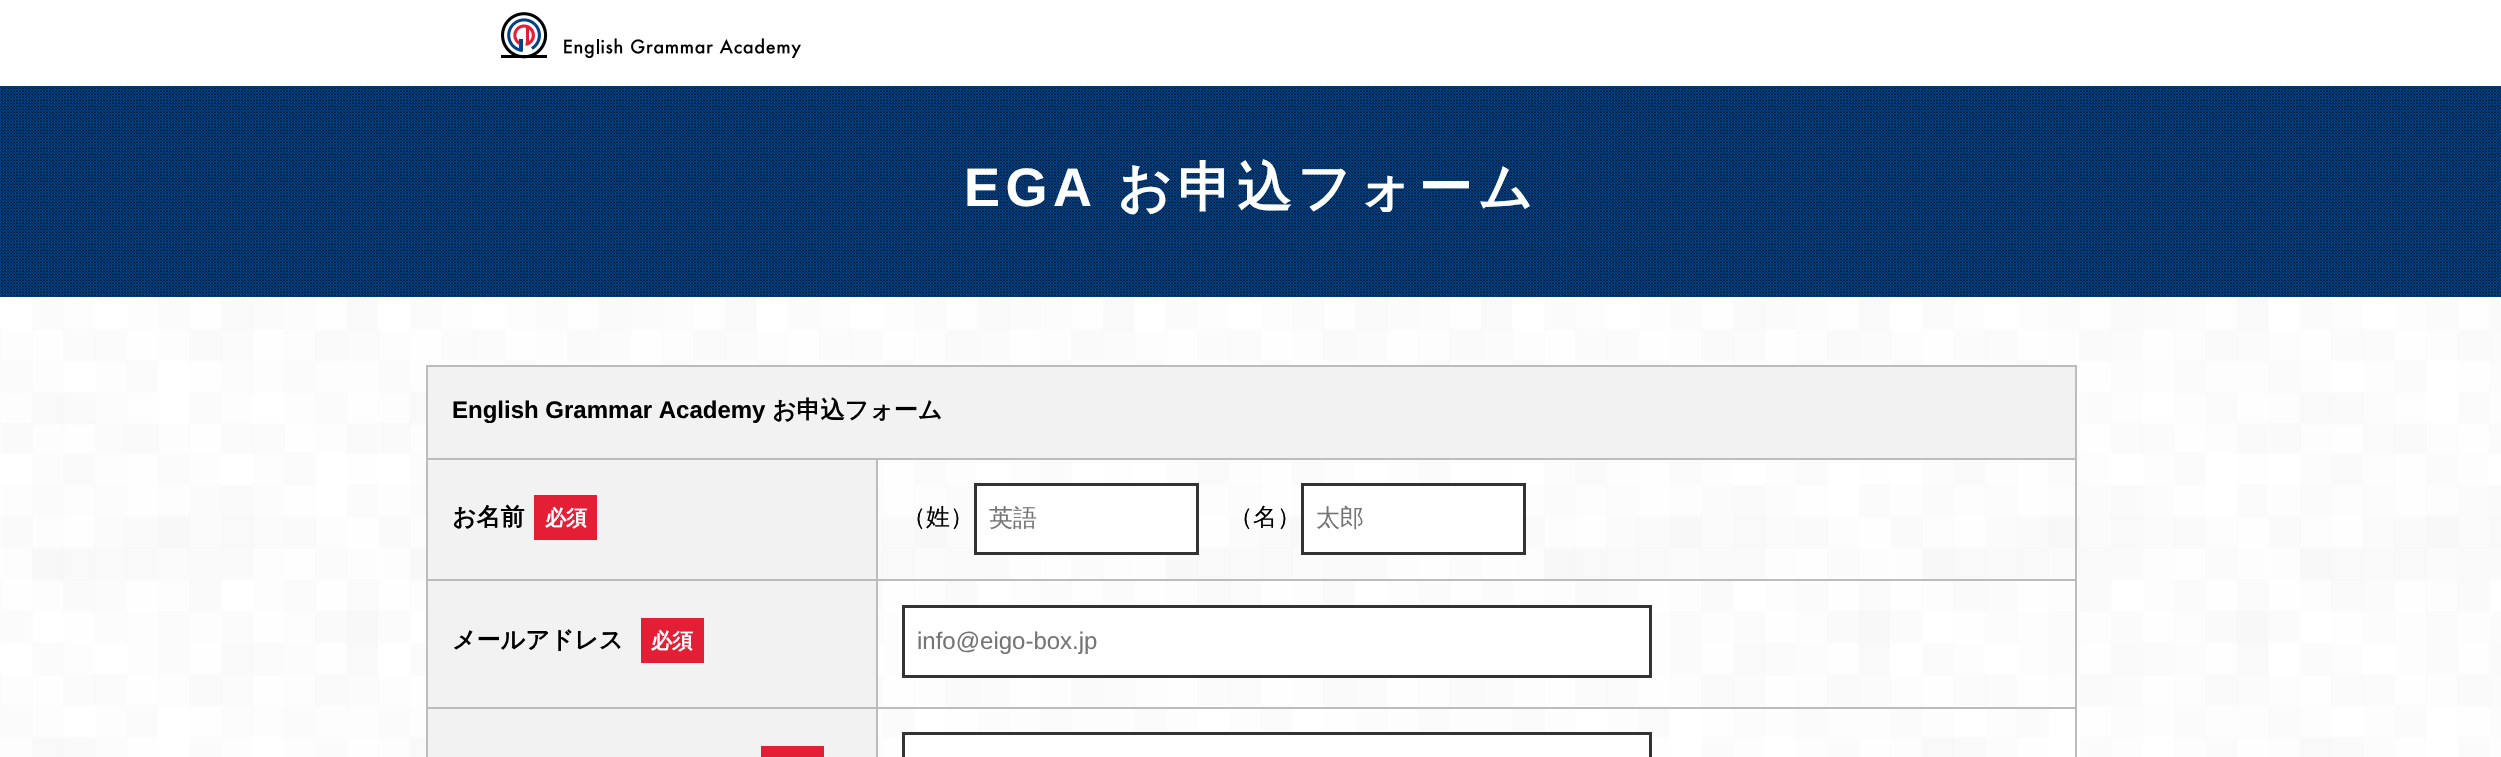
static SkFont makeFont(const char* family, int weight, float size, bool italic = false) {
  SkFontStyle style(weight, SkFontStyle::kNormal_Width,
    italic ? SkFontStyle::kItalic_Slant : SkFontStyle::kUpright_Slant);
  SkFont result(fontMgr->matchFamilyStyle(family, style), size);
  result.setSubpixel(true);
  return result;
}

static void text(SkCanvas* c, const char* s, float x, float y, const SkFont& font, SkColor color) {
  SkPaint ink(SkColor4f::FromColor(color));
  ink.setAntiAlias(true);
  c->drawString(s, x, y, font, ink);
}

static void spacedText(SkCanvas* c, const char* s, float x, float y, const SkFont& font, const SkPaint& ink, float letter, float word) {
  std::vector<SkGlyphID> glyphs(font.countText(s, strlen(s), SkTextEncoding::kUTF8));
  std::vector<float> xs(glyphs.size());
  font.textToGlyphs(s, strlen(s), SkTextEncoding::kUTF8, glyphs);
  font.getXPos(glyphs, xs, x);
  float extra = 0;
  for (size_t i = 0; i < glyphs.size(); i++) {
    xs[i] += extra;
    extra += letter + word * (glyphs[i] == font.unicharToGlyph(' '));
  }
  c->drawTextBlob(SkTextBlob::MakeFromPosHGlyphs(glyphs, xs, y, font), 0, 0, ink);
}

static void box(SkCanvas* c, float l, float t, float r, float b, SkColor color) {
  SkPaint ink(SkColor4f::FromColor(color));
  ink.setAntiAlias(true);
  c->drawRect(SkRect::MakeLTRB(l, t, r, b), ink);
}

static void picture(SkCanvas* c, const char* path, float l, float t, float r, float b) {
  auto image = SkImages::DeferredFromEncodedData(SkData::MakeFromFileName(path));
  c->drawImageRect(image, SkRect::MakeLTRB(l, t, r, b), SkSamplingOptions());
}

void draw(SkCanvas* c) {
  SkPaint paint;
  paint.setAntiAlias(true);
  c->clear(0xffffffff);
  picture(c, "img_01.png", 501, 12, 801, 59);
  picture(c, "img_02.png", 0, 297, 2501, 757);
  picture(c, "img_03.png", 0, 86, 2501, 297);
  SkFont face1 = makeFont("Liberation Sans", 700, 54);
  paint.setColor(0xffffffff);
  spacedText(c, "EGA", 964, 206, face1, paint, 5.5f, 0);
  SkFont face2 = makeFont("WenQuanYi Zen Hei", 700, 54);
  spacedText(c, "お申込フォーム", 1117, 206, face2, paint, 5.5f, 0);
  box(c, 428, 367, 2075, 458, 0xfff2f2f2);
  box(c, 426, 365, 2076, 367, 0xffbcbcbc);
  box(c, 876, 458, 2076, 460, 0xffbcbcbc);
  box(c, 876, 579, 2076, 581, 0xffbcbcbc);
  box(c, 876, 707, 2076, 709, 0xffbcbcbc);
  box(c, 2075, 707, 2077, 757, 0xffbcbcbc);
  box(c, 2075, 579, 2077, 708, 0xffbcbcbc);
  box(c, 2075, 458, 2077, 581, 0xffbcbcbc);
  box(c, 2075, 365, 2077, 459, 0xffbcbcbc);
  box(c, 876, 707, 878, 757, 0xffbcbcbc);
  box(c, 426, 707, 878, 709, 0xffbcbcbc);
  box(c, 876, 579, 878, 708, 0xffbcbcbc);
  box(c, 426, 579, 878, 581, 0xffbcbcbc);
  box(c, 876, 458, 878, 581, 0xffbcbcbc);
  box(c, 426, 458, 878, 460, 0xffbcbcbc);
  box(c, 426, 707, 428, 757, 0xffbcbcbc);
  box(c, 426, 579, 428, 708, 0xffbcbcbc);
  box(c, 426, 458, 428, 581, 0xffbcbcbc);
  box(c, 426, 365, 428, 459, 0xffbcbcbc);
  SkFont face3 = makeFont("Liberation Sans", 700, 24);
  text(c, "English Grammar Academy", 452, 418, face3, 0xff000000);
  SkFont face4 = makeFont("WenQuanYi Zen Hei", 700, 24);
  text(c, "お申込フォーム", 772, 418, face4, 0xff000000);
  box(c, 428, 460, 876, 579, 0xfff2f2f2);
  text(c, "お名前", 452, 525, face4, 0xff000000);
  box(c, 534, 495, 597, 540, 0xffe41e35);
  SkFont face5 = makeFont("WenQuanYi Zen Hei", 700, 21);
  text(c, "必須", 545, 525, face5, 0xffffffff);
  SkFont face6 = makeFont("WenQuanYi Zen Hei", 500, 24);
  text(c, "（姓）", 902, 525, face6, 0xff000000);
  c->drawRect(SkRect::MakeLTRB(975.5f, 484.5f, 1197.5f, 553.5f), paint);
  paint.setStyle(SkPaint::kStroke_Style);
  paint.setStrokeWidth(3);
  paint.setColor(0xff333333);
  c->drawRect(SkRect::MakeLTRB(975.5f, 484.5f, 1197.5f, 553.5f), paint);
  text(c, "英語", 989, 526, face6, 0xff757575);
  text(c, "（名）", 1229, 525, face6, 0xff000000);
  paint.setStyle(SkPaint::kFill_Style);
  paint.setColor(0xffffffff);
  c->drawRect(SkRect::MakeLTRB(1302.5f, 484.5f, 1524.5f, 553.5f), paint);
  paint.setStyle(SkPaint::kStroke_Style);
  paint.setColor(0xff333333);
  c->drawRect(SkRect::MakeLTRB(1302.5f, 484.5f, 1524.5f, 553.5f), paint);
  text(c, "太郎", 1316, 526, face6, 0xff757575);
  box(c, 428, 581, 876, 707, 0xfff2f2f2);
  text(c, "メールアドレス", 452, 648, face4, 0xff000000);
  box(c, 641, 618, 704, 663, 0xffe41e35);
  text(c, "必須", 651, 648, face5, 0xffffffff);
  paint.setStyle(SkPaint::kFill_Style);
  paint.setColor(0xffffffff);
  c->drawRect(SkRect::MakeLTRB(903.5f, 606.5f, 1650.5f, 676.5f), paint);
  paint.setStyle(SkPaint::kStroke_Style);
  paint.setColor(0xff333333);
  c->drawRect(SkRect::MakeLTRB(903.5f, 606.5f, 1650.5f, 676.5f), paint);
  SkFont face7 = makeFont("Liberation Sans", 400, 24);
  text(c, "info@eigo-box.jp", 917, 649, face7, 0xff757575);
  box(c, 428, 709, 876, 757, 0xfff2f2f2);
  box(c, 761, 746, 824, 757, 0xffe41e35);
  paint.setStyle(SkPaint::kFill_Style);
  paint.setColor(0xffffffff);
  c->drawRect(SkRect::MakeLTRB(903.5f, 733.5f, 1650.5f, 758.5f), paint);
  paint.setStyle(SkPaint::kStroke_Style);
  paint.setColor(0xff333333);
  c->drawRect(SkRect::MakeLTRB(903.5f, 733.5f, 1650.5f, 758.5f), paint);
}
